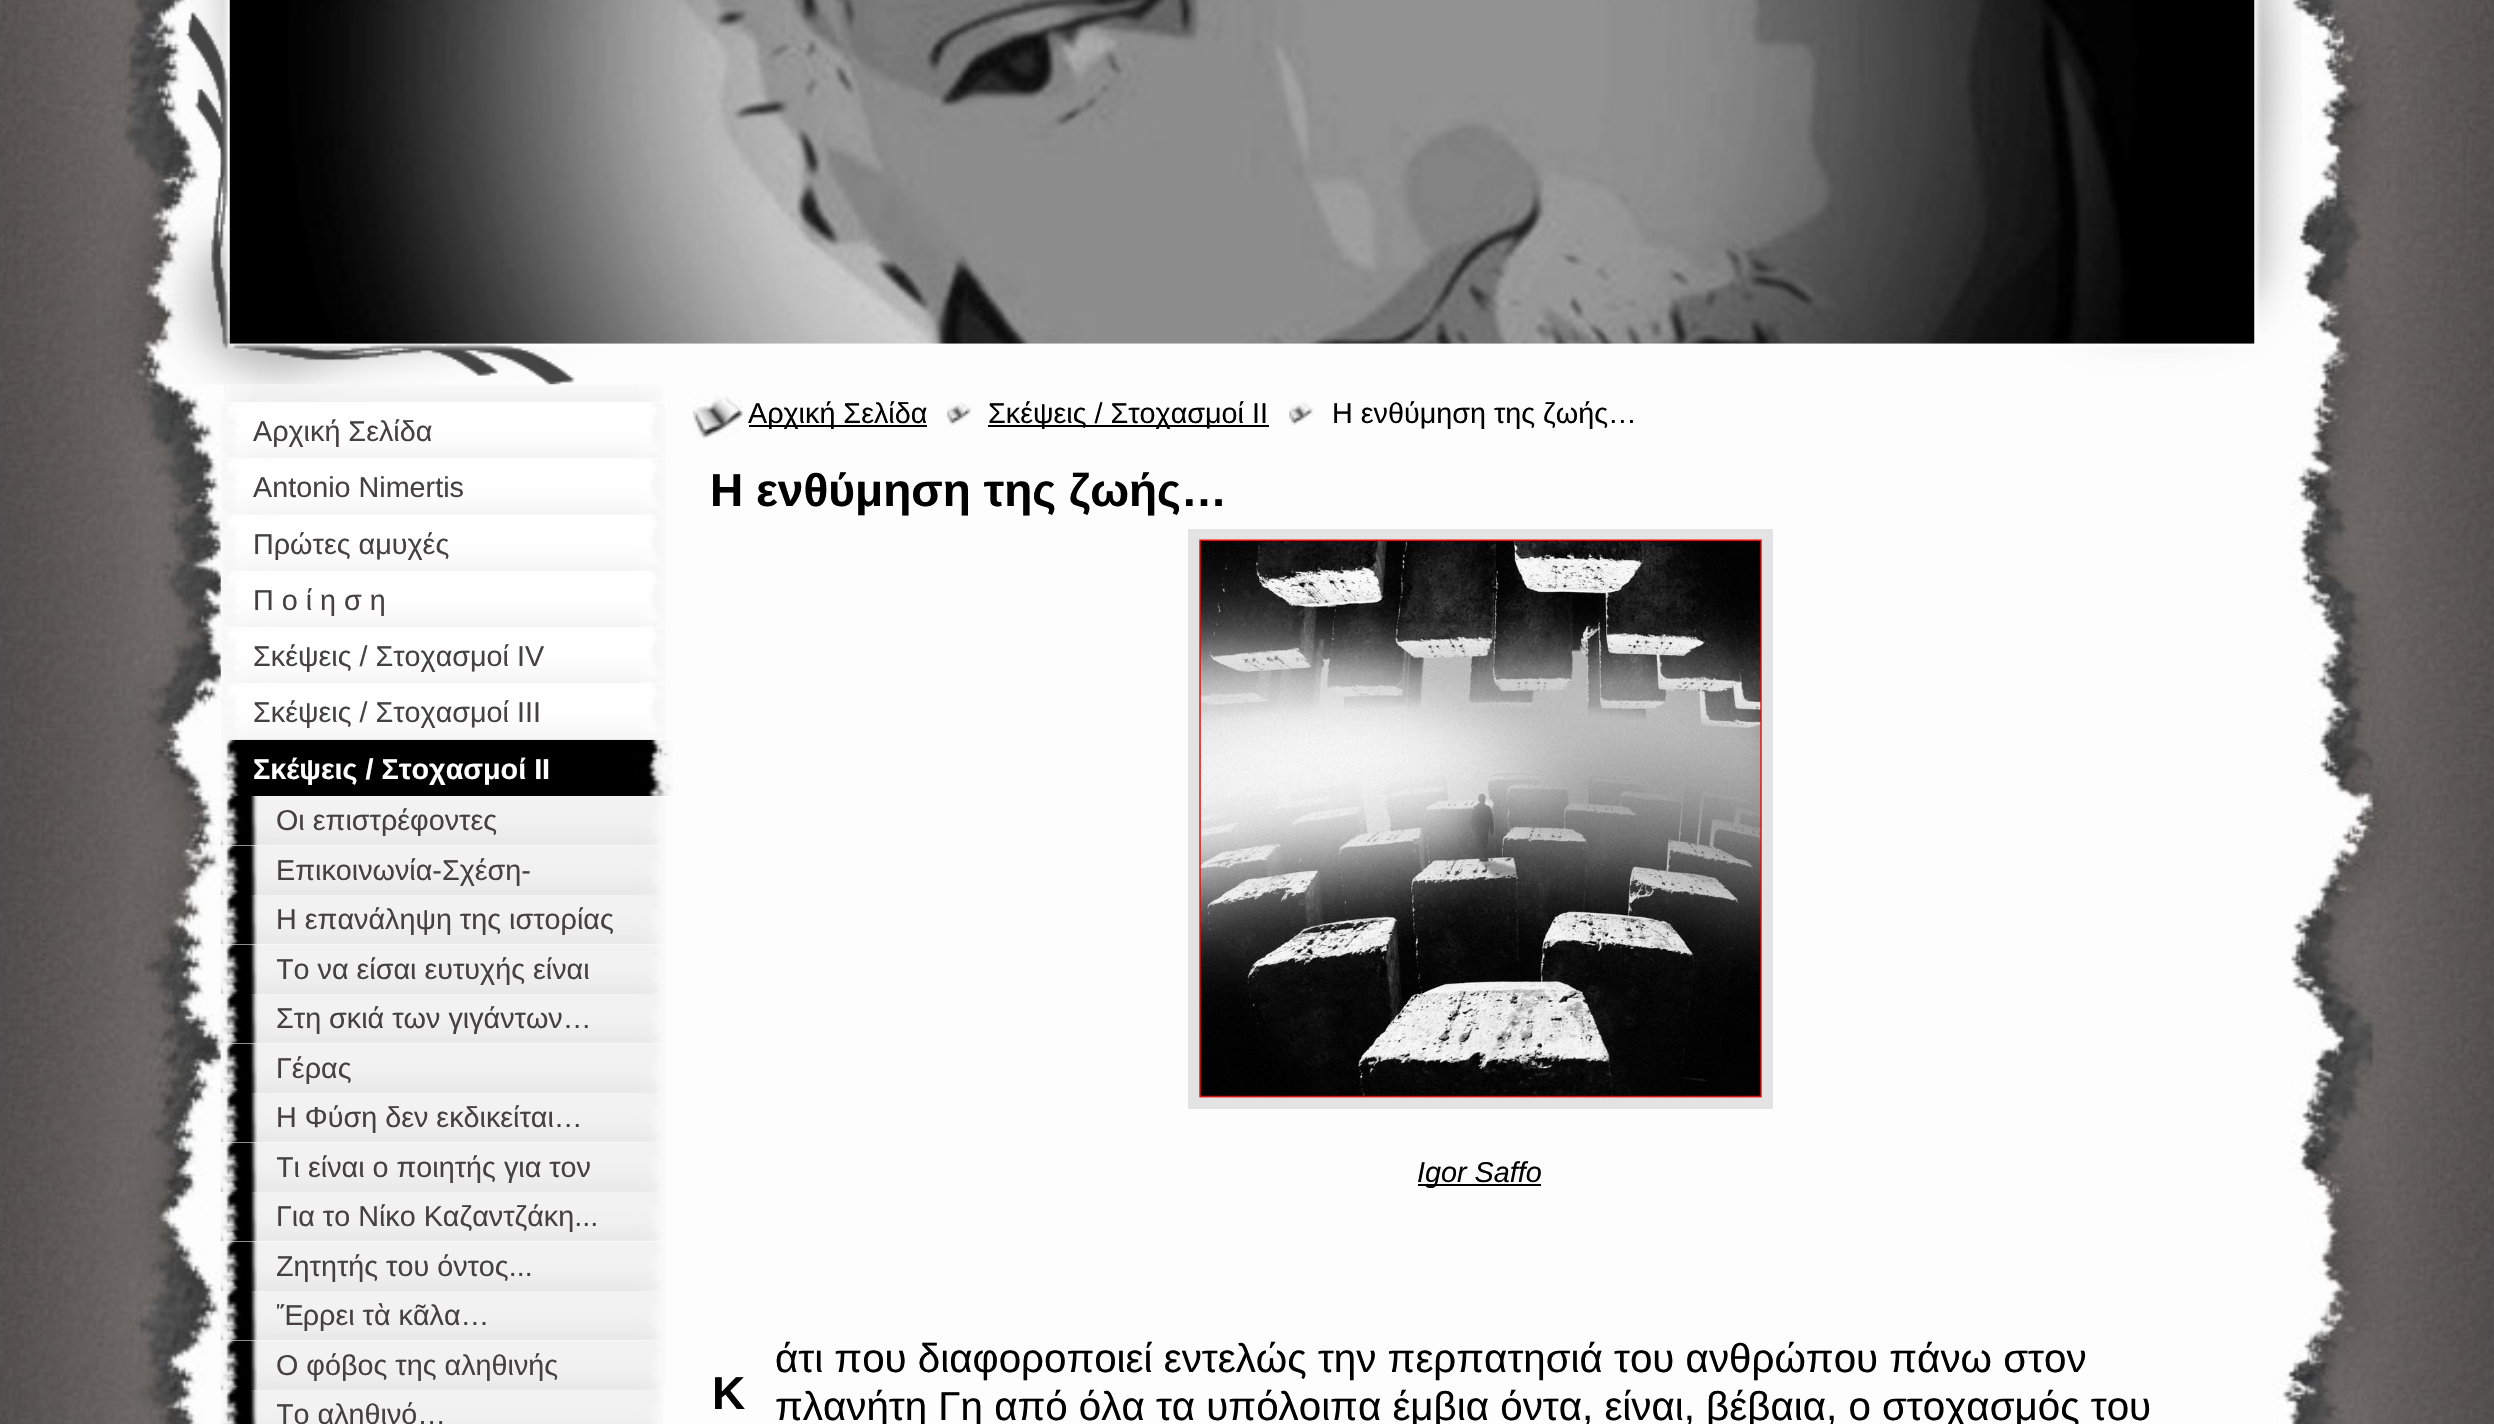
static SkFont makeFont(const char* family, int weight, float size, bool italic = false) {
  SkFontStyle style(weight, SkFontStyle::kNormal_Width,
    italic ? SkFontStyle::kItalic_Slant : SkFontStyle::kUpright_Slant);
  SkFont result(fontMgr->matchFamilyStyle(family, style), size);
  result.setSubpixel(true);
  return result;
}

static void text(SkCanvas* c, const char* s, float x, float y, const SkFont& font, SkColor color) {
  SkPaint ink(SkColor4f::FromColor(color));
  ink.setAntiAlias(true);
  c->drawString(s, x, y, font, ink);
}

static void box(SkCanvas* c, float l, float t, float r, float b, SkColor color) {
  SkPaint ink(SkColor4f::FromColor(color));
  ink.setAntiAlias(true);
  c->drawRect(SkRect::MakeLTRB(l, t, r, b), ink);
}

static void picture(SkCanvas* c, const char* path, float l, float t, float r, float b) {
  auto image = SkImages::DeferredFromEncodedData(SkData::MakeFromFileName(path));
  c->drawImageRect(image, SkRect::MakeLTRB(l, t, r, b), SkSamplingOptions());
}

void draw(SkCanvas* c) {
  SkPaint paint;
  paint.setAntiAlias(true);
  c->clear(0xffffffff);
  picture(c, "img_01.png", 0, 0, 2494, 1424);
  picture(c, "img_04.png", 224, 384, 663, 402);
  picture(c, "img_02.png", 162, 0, 2302, 385);
  picture(c, "img_03.png", 229, 0, 2255, 344);
  picture(c, "img_05.png", 221, 403, 665, 458);
  SkFont face1 = makeFont("Liberation Sans", 400, 28.75f);
  text(c, "Αρχική Σελίδα", 253, 441, face1, 0xff454143);
  picture(c, "img_06.png", 221, 459, 665, 515);
  text(c, "Antonio Nimertis", 253, 497, face1, 0xff454143);
  picture(c, "img_07.png", 220, 515, 665, 571);
  text(c, "Πρώτες αμυχές", 253, 554, face1, 0xff454143);
  picture(c, "img_08.png", 220, 571, 665, 627);
  text(c, "Π ο ί η σ η", 253, 610, face1, 0xff454143);
  picture(c, "img_09.png", 220, 628, 665, 683);
  text(c, "Σκέψεις / Στοχασμοί IV", 253, 666, face1, 0xff454143);
  picture(c, "img_06.png", 221, 684, 665, 740);
  text(c, "Σκέψεις / Στοχασμοί ΙΙΙ", 253, 722, face1, 0xff454143);
  picture(c, "img_10.png", 221, 739, 673, 796);
  SkFont face2 = makeFont("Liberation Sans", 700, 28.75f);
  text(c, "Σκέψεις / Στοχασμοί ΙΙ", 253, 779, face2, 0xffffffff);
  picture(c, "img_11.png", 220, 796, 665, 846);
  text(c, "Οι επιστρέφοντες", 276, 830, face1, 0xff454143);
  picture(c, "img_12.png", 220, 845, 665, 895);
  text(c, "Επικοινωνία-Σχέση-", 276, 880, face1, 0xff454143);
  picture(c, "img_13.png", 220, 895, 665, 945);
  text(c, "Η επανάληψη της ιστορίας", 276, 929, face1, 0xff454143);
  picture(c, "img_14.png", 220, 944, 665, 994);
  c->save();
  c->clipRect(SkRect::MakeLTRB(277, 945, 637, 995));
  text(c, "Το να είσαι ευτυχής είναι", 276, 979, face1, 0xff454143);
  c->restore();
  picture(c, "img_15.png", 220, 994, 665, 1044);
  text(c, "Στη σκιά των γιγάντων…", 276, 1028, face1, 0xff454143);
  picture(c, "img_16.png", 220, 1043, 665, 1093);
  text(c, "Γέρας", 276, 1078, face1, 0xff454143);
  picture(c, "img_17.png", 220, 1093, 665, 1143);
  text(c, "Η Φύση δεν εκδικείται…", 276, 1127, face1, 0xff454143);
  picture(c, "img_18.png", 220, 1142, 665, 1192);
  c->save();
  c->clipRect(SkRect::MakeLTRB(277, 1143, 637, 1193));
  text(c, "Τι είναι ο ποιητής για τον", 276, 1177, face1, 0xff454143);
  c->restore();
  picture(c, "img_13.png", 220, 1192, 665, 1242);
  text(c, "Για το Νίκο Καζαντζάκη...", 276, 1226, face1, 0xff454143);
  picture(c, "img_19.png", 220, 1241, 665, 1291);
  c->save();
  c->clipRect(SkRect::MakeLTRB(277, 1242, 637, 1292));
  text(c, "Ζητητής του όντος...", 276, 1276, face1, 0xff454143);
  c->restore();
  picture(c, "img_20.png", 220, 1291, 665, 1341);
  c->save();
  c->clipRect(SkRect::MakeLTRB(277, 1292, 637, 1341));
  text(c, "Ἔρρει τὰ κᾶλα…", 276, 1325, face1, 0xff454143);
  c->restore();
  picture(c, "img_14.png", 220, 1340, 665, 1390);
  text(c, "Ο φόβος της αληθινής", 276, 1375, face1, 0xff454143);
  picture(c, "img_21.png", 221, 1390, 663, 1424);
  c->save();
  c->clipRect(SkRect::MakeLTRB(277, 1391, 637, 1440));
  text(c, "Το αληθινό…", 276, 1424, face1, 0xff454143);
  c->restore();
  picture(c, "img_22.png", 693, 395, 743, 439);
  box(c, 749, 425, 927, 427, 0xff000000);
  text(c, "Αρχική Σελίδα", 748, 423, face1, 0xff000000);
  picture(c, "img_23.png", 947, 402, 972, 425);
  box(c, 988, 425, 1269, 427, 0xff000000);
  text(c, "Σκέψεις / Στοχασμοί ΙΙ", 988, 423, face1, 0xff000000);
  picture(c, "img_23.png", 1289, 402, 1314, 425);
  text(c, "Η ενθύμηση της ζωής…", 1332, 423, face1, 0xff000000);
  SkFont face3 = makeFont("Liberation Sans", 700, 46);
  text(c, "Η ενθύμηση της ζωής…", 710, 506, face3, 0xff000000);
  paint.setStyle(SkPaint::kStroke_Style);
  paint.setStrokeWidth(11);
  paint.setColor(0xffe3e3e3);
  c->drawRect(SkRect::MakeLTRB(1193.5f, 534.5f, 1767.5f, 1103.5f), paint);
  picture(c, "img_24.png", 1199, 539, 1762, 1098);
  box(c, 1418, 1184, 1541, 1186, 0xff000000);
  SkFont face4 = makeFont("Liberation Sans", 400, 28.75f, true);
  text(c, "Igor Saffo", 1417, 1182, face4, 0xff000000);
  text(c, "Κ", 712, 1409, face3, 0xff000000);
  SkFont face5 = makeFont("Liberation Sans", 400, 40.3f);
  text(c, "άτι που διαφοροποιεί εντελώς την περπατησιά του ανθρώπου πάνω στον", 775, 1372, face5, 0xff000000);
  text(c, "πλανήτη Γη από όλα τα υπόλοιπα έμβια όντα, είναι, βέβαια, ο στοχασμός του", 775, 1420, face5, 0xff000000);
}
